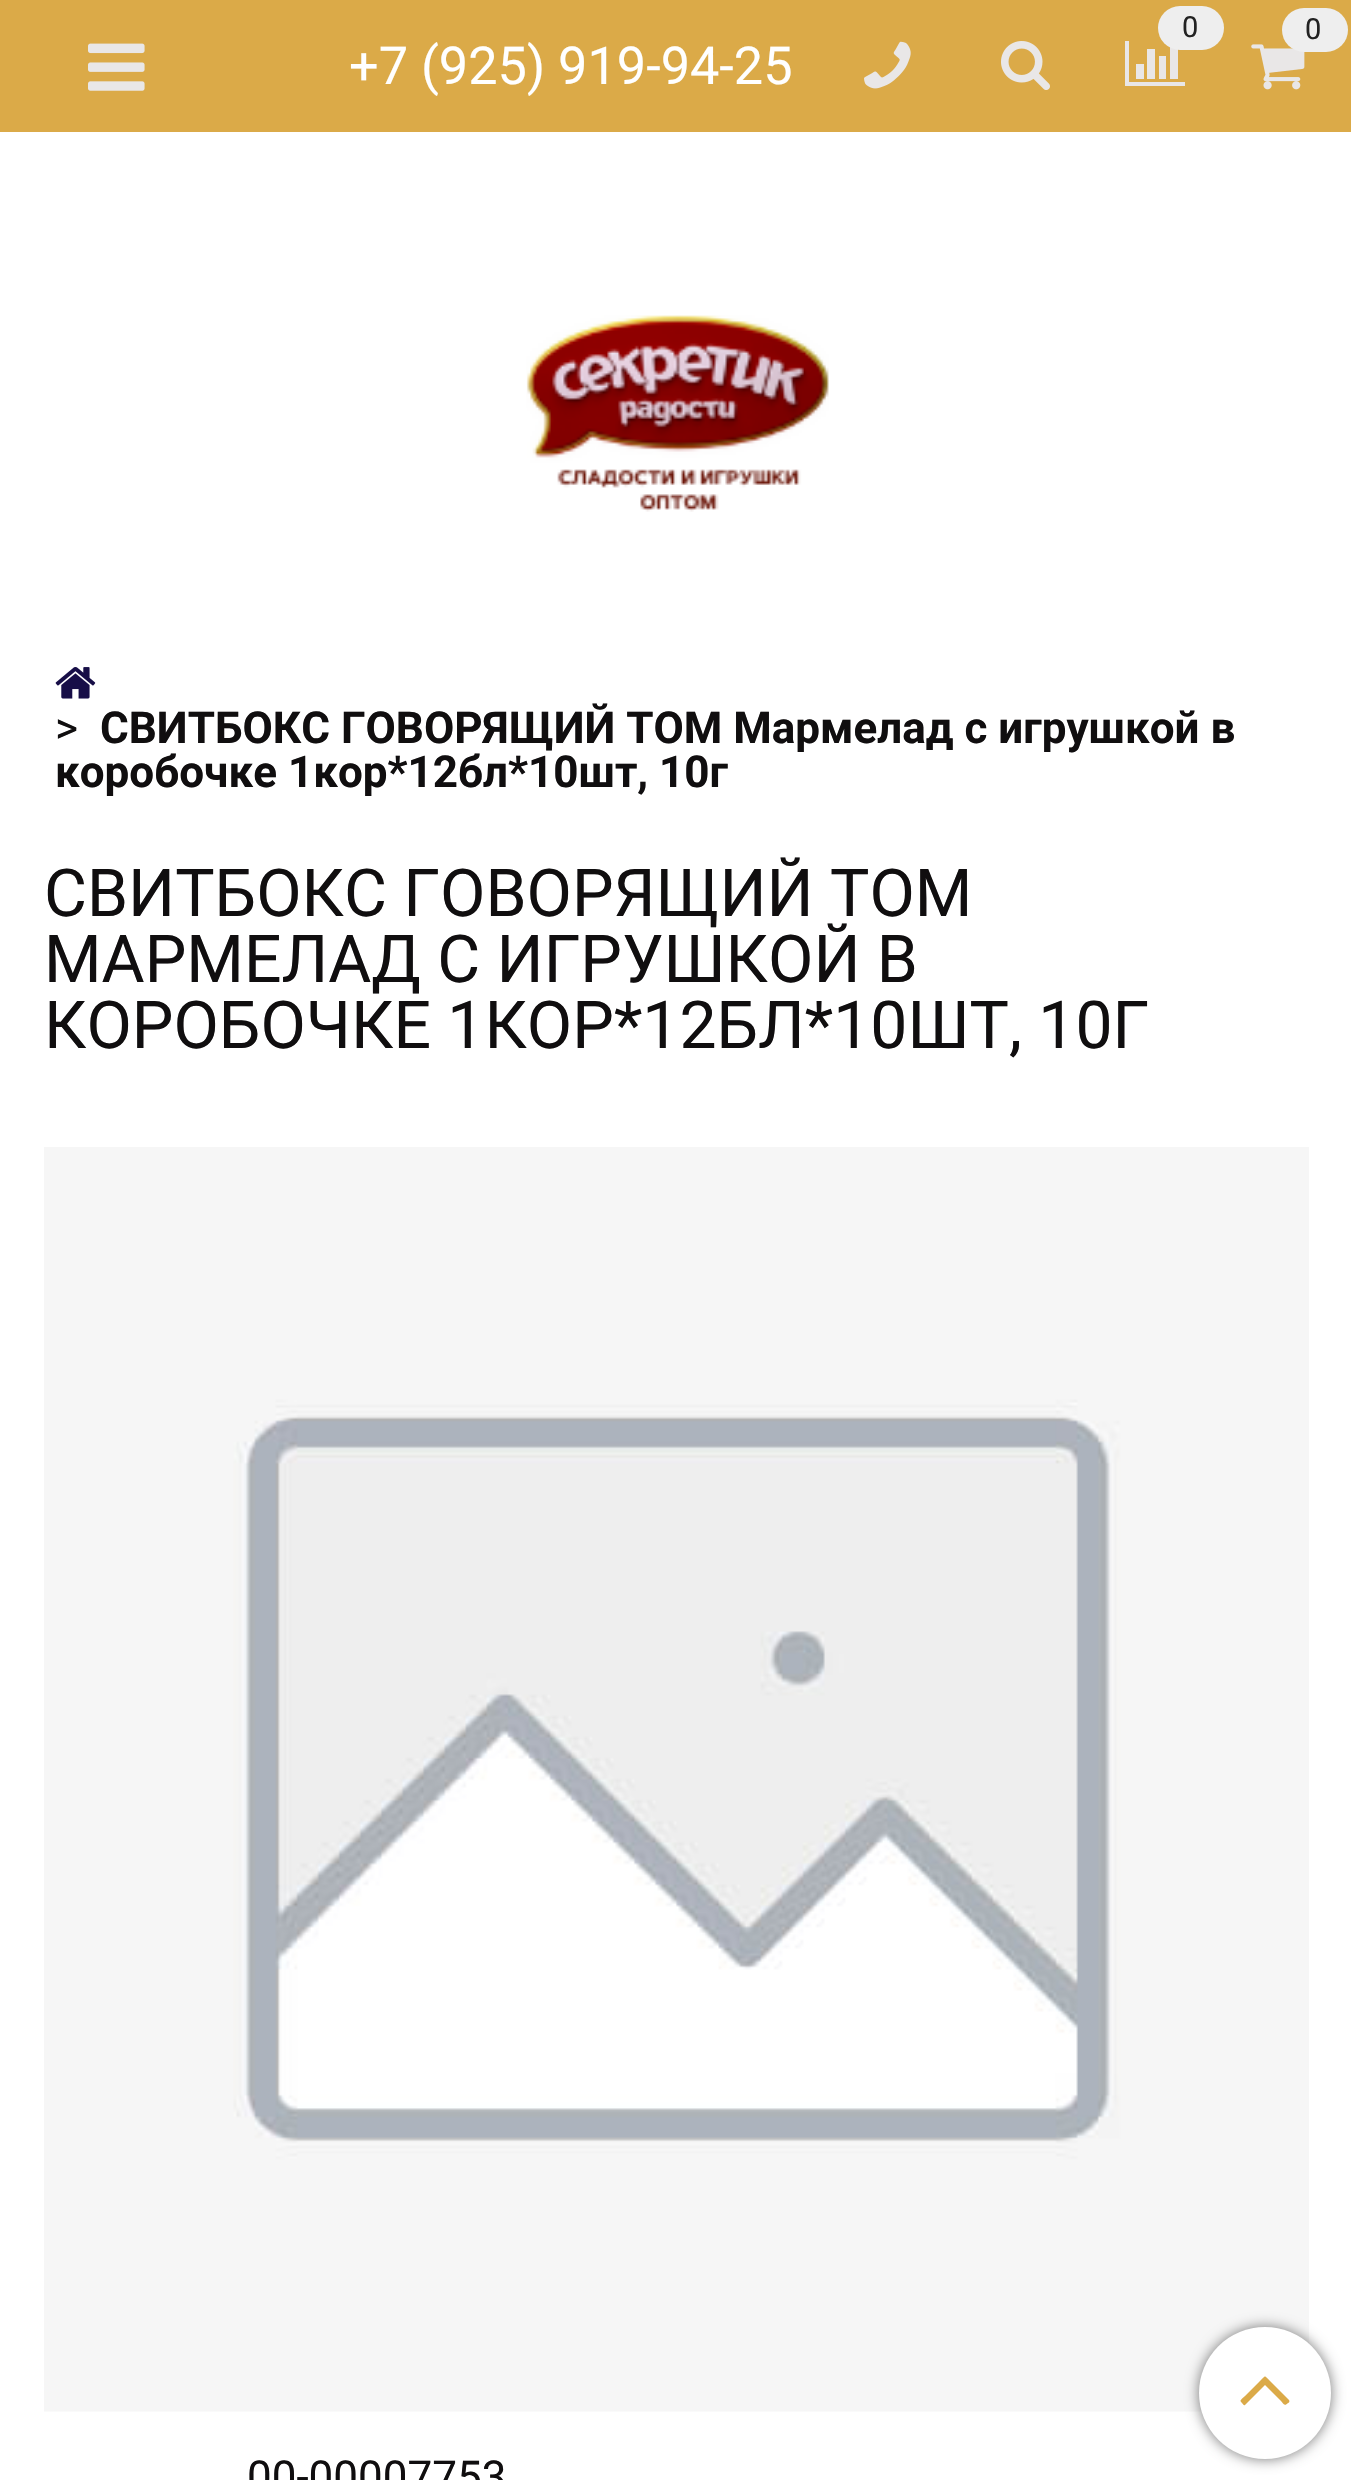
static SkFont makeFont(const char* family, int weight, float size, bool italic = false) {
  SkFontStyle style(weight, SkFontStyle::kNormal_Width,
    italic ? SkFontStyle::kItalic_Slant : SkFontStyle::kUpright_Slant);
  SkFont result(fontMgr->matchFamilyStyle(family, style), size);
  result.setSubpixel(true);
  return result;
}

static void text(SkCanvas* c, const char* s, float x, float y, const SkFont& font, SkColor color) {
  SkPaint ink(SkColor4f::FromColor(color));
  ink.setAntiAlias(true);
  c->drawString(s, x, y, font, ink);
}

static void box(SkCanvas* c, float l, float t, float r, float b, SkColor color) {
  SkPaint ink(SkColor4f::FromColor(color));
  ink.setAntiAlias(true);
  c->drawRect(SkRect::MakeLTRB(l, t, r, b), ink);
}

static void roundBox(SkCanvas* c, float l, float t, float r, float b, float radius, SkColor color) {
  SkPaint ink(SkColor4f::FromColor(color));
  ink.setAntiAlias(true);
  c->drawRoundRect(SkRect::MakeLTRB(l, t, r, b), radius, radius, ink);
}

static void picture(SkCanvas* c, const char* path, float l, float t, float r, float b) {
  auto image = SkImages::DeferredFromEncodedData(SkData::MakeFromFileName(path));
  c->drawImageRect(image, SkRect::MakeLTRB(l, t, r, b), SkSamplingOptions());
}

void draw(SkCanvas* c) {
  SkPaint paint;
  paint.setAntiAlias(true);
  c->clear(0xffffffff);
  box(c, 0, 0, 1351, 132, 0xffdbaa48);
  picture(c, "img_01.png", 88, 43, 145, 91);
  paint.setColor(0xffe9e7e7);
  c->drawPath(SkPathBuilder().moveTo(1144, 64).lineTo(1144, 79).lineTo(1136, 79).lineTo(1136, 64).close().moveTo(1155, 49).lineTo(1155, 79).lineTo(1147, 79).lineTo(1147, 49).close().moveTo(1185, 82).lineTo(1185, 86).lineTo(1125, 86).lineTo(1125, 41).lineTo(1129, 41).lineTo(1129, 82).close().moveTo(1166, 56).lineTo(1166, 79).lineTo(1159, 79).lineTo(1159, 56).close().moveTo(1178, 45).lineTo(1178, 79).lineTo(1170, 79).lineTo(1170, 45).close().detach(), paint);
  roundBox(c, 1158, 6, 1224, 50, 22, 0xffeeeeee);
  SkFont face1 = makeFont("Roboto", 400, 29);
  text(c, "0", 1182, 37, face1, 0xff222222);
  picture(c, "img_02.png", 1251, 44, 1305, 90);
  roundBox(c, 1282, 8, 1348, 52, 22, 0xffeeeeee);
  text(c, "0", 1305, 39, face1, 0xff222222);
  SkFont face2 = makeFont("Roboto", 400, 52.25f);
  text(c, "+7 (925) 919-94-25", 349, 84, face2, 0xffffffff);
  picture(c, "img_03.png", 864, 41, 911, 89);
  picture(c, "img_04.png", 1001, 41, 1050, 90);
  picture(c, "img_05.png", 526, 315, 829, 512);
  picture(c, "img_06.png", 55, 667, 96, 699);
  SkFont face3 = makeFont("Roboto", 400, 44);
  text(c, ">", 55, 743, face3, 0xff100e0f);
  SkFont face4 = makeFont("Roboto", 700, 44);
  text(c, "СВИТБОКС ГОВОРЯЩИЙ ТОМ Мармелад с игрушкой в", 100, 743, face4, 0xff100e0f);
  text(c, "коробочке 1кор*12бл*10шт, 10г", 55, 787, face4, 0xff100e0f);
  SkFont face5 = makeFont("Roboto", 400, 66);
  text(c, "СВИТБОКС ГОВОРЯЩИЙ ТОМ", 44, 916, face5, 0xff100e0f);
  text(c, "МАРМЕЛАД С ИГРУШКОЙ В", 44, 982, face5, 0xff100e0f);
  text(c, "КОРОБОЧКЕ 1КОР*12БЛ*10ШТ, 10Г", 44, 1048, face5, 0xff100e0f);
  picture(c, "img_07.png", 44, 1147, 1309, 2412);
  text(c, "00-00007753", 247, 2492, face3, 0xff100e0f);
  paint.setColor(0xff777777);
  paint.setMaskFilter(SkMaskFilter::MakeBlur(kNormal_SkBlurStyle, 7));
  c->drawRoundRect(SkRect::MakeLTRB(1199, 2327, 1331, 2459), 66, 66, paint);
  paint.setMaskFilter(nullptr);
  paint.setColor(0xffffffff);
  c->drawCircle(1265, 2393, 66, paint);
  paint.setColor(0xffdbaa48);
  c->drawPath(SkPathBuilder().moveTo(1289, 2400).cubicTo(1290, 2401, 1289, 2403, 1288, 2403).cubicTo(1285, 2406, 1284, 2405, 1281, 2401).lineTo(1265, 2385).lineTo(1245, 2405).cubicTo(1244, 2406, 1243, 2404, 1242, 2403).cubicTo(1239, 2400, 1241, 2400, 1245, 2396).lineTo(1260, 2381).cubicTo(1266, 2375, 1264, 2375, 1270, 2381).close().detach(), paint);
}
